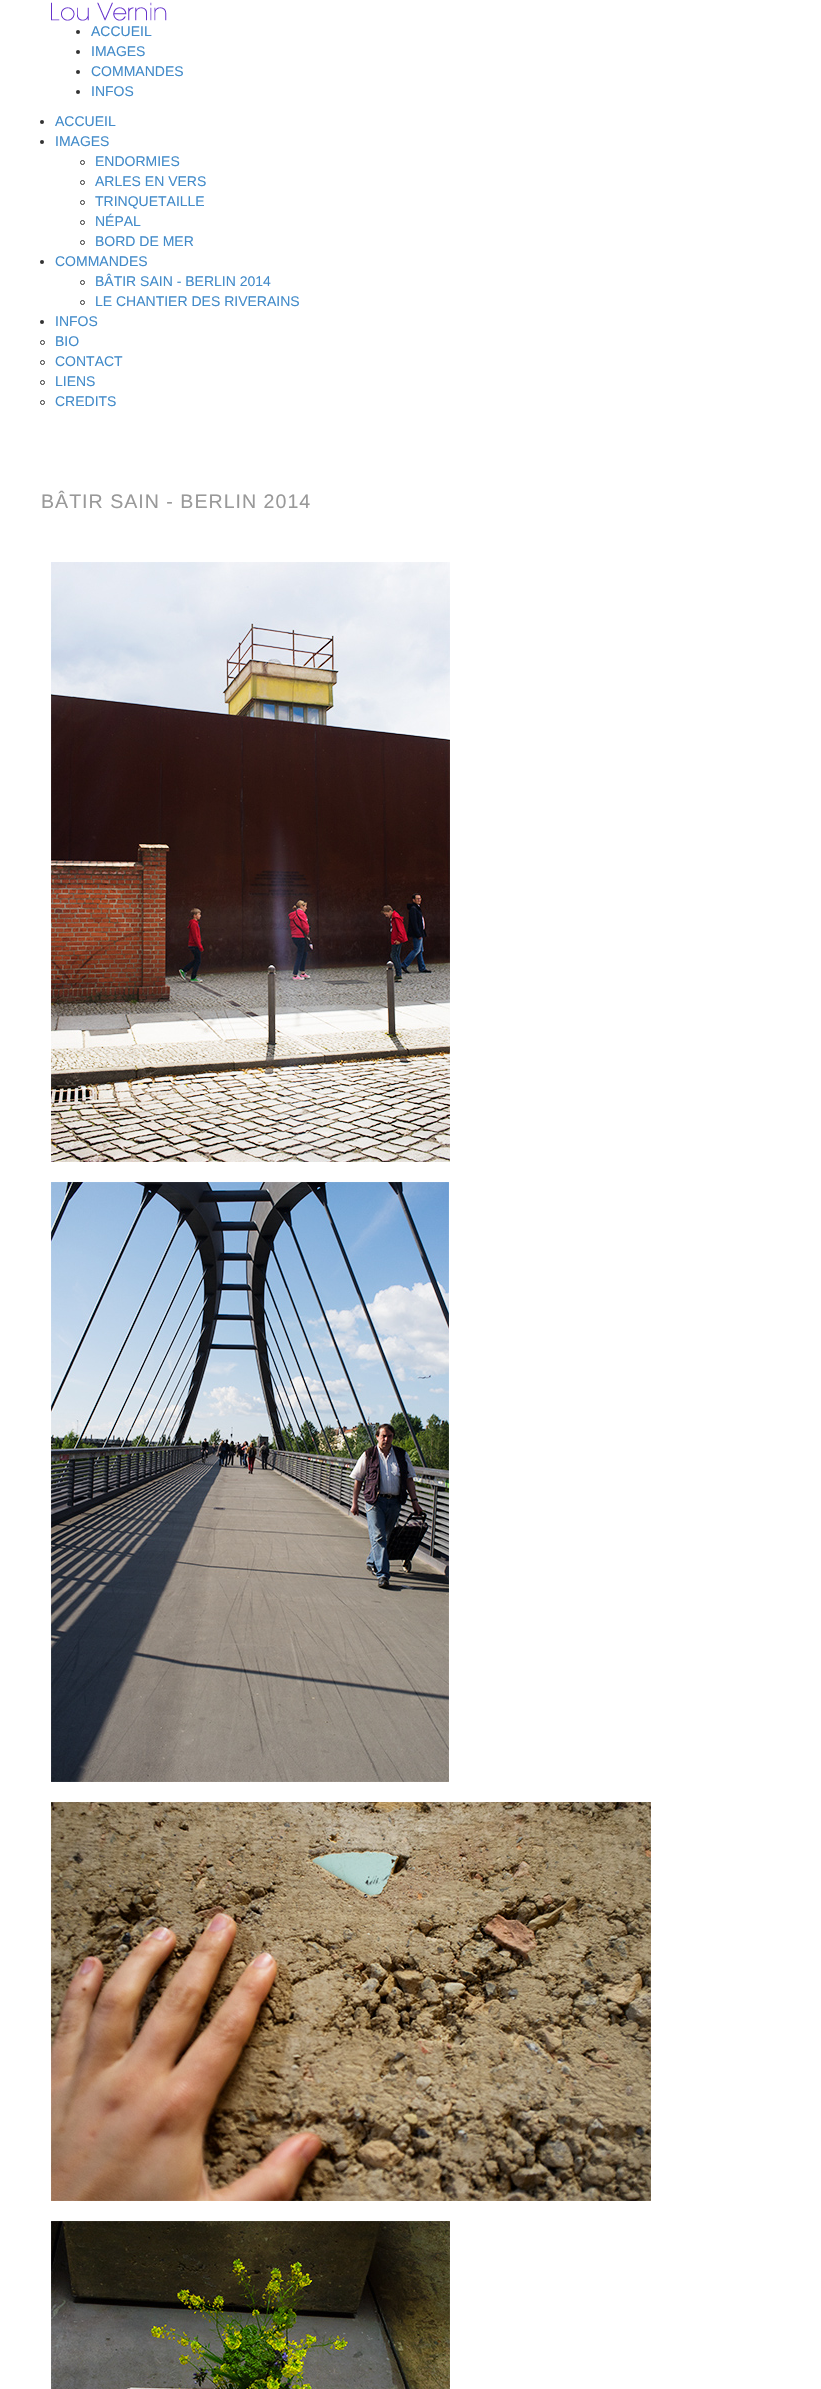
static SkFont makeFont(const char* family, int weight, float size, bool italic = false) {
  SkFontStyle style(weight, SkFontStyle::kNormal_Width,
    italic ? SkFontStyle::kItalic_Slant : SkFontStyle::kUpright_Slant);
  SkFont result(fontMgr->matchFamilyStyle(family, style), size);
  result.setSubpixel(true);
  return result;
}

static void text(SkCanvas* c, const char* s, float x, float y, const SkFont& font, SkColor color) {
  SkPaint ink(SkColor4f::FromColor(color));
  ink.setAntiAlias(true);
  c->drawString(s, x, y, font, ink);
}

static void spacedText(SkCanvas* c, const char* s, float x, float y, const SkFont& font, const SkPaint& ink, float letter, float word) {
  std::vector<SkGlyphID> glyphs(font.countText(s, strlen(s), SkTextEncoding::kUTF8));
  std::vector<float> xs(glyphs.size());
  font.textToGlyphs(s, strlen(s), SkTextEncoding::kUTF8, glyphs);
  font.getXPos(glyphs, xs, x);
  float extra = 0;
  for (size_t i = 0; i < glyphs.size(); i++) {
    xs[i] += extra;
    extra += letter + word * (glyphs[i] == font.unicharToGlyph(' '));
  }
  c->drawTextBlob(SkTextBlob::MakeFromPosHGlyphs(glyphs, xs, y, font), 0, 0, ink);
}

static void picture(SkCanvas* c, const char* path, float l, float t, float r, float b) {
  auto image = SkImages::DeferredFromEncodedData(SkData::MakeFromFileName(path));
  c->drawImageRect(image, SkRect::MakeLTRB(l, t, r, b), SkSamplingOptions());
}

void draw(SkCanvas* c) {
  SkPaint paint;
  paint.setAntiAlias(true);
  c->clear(0xffffffff);
  picture(c, "img_01.png", 51, 2, 167, 21);
  paint.setColor(0xff333333);
  c->drawCircle(78, 32, 2, paint);
  SkFont face1 = makeFont("Liberation Sans", 400, 14);
  text(c, "ACCUEIL", 91, 36, face1, 0xff428bca);
  c->drawCircle(78, 52, 2, paint);
  text(c, "IMAGES", 91, 56, face1, 0xff428bca);
  c->drawCircle(78, 72, 2, paint);
  text(c, "COMMANDES", 91, 76, face1, 0xff428bca);
  c->drawCircle(78, 92, 2, paint);
  text(c, "INFOS", 91, 96, face1, 0xff428bca);
  c->drawCircle(42, 122, 2, paint);
  text(c, "ACCUEIL", 55, 126, face1, 0xff428bca);
  c->drawCircle(42, 142, 2, paint);
  text(c, "IMAGES", 55, 146, face1, 0xff428bca);
  paint.setStyle(SkPaint::kStroke_Style);
  paint.setStrokeWidth(1);
  c->drawCircle(82.5f, 162.5f, 2, paint);
  text(c, "ENDORMIES", 95, 166, face1, 0xff428bca);
  c->drawCircle(82.5f, 182.5f, 2, paint);
  text(c, "ARLES EN VERS", 95, 186, face1, 0xff428bca);
  c->drawCircle(82.5f, 202.5f, 2, paint);
  text(c, "TRINQUETAILLE", 95, 206, face1, 0xff428bca);
  c->drawCircle(82.5f, 222.5f, 2, paint);
  text(c, "NÉPAL", 95, 226, face1, 0xff428bca);
  c->drawCircle(82.5f, 242.5f, 2, paint);
  text(c, "BORD DE MER", 95, 246, face1, 0xff428bca);
  paint.setStyle(SkPaint::kFill_Style);
  c->drawCircle(42, 262, 2, paint);
  text(c, "COMMANDES", 55, 266, face1, 0xff428bca);
  paint.setStyle(SkPaint::kStroke_Style);
  c->drawCircle(82.5f, 282.5f, 2, paint);
  text(c, "BÂTIR SAIN - BERLIN 2014", 95, 286, face1, 0xff428bca);
  c->drawCircle(82.5f, 302.5f, 2, paint);
  text(c, "LE CHANTIER DES RIVERAINS", 95, 306, face1, 0xff428bca);
  paint.setStyle(SkPaint::kFill_Style);
  c->drawCircle(42, 322, 2, paint);
  text(c, "INFOS", 55, 326, face1, 0xff428bca);
  paint.setStyle(SkPaint::kStroke_Style);
  c->drawCircle(42.5f, 342.5f, 2, paint);
  text(c, "BIO", 55, 346, face1, 0xff428bca);
  c->drawCircle(42.5f, 362.5f, 2, paint);
  text(c, "CONTACT", 55, 366, face1, 0xff428bca);
  c->drawCircle(42.5f, 382.5f, 2, paint);
  text(c, "LIENS", 55, 386, face1, 0xff428bca);
  c->drawCircle(42.5f, 402.5f, 2, paint);
  text(c, "CREDITS", 55, 406, face1, 0xff428bca);
  SkFont face2 = makeFont("Liberation Sans", 400, 19.6f);
  paint.setStyle(SkPaint::kFill_Style);
  paint.setColor(0xff999999);
  spacedText(c, "BÂTIR SAIN - BERLIN 2014", 41, 508, face2, paint, 1, 0);
  picture(c, "img_02.png", 51, 562, 450, 1162);
  picture(c, "img_03.png", 51, 1182, 449, 1782);
  picture(c, "img_04.png", 51, 1802, 651, 2201);
  picture(c, "img_05.png", 51, 2221, 450, 2389);
}
